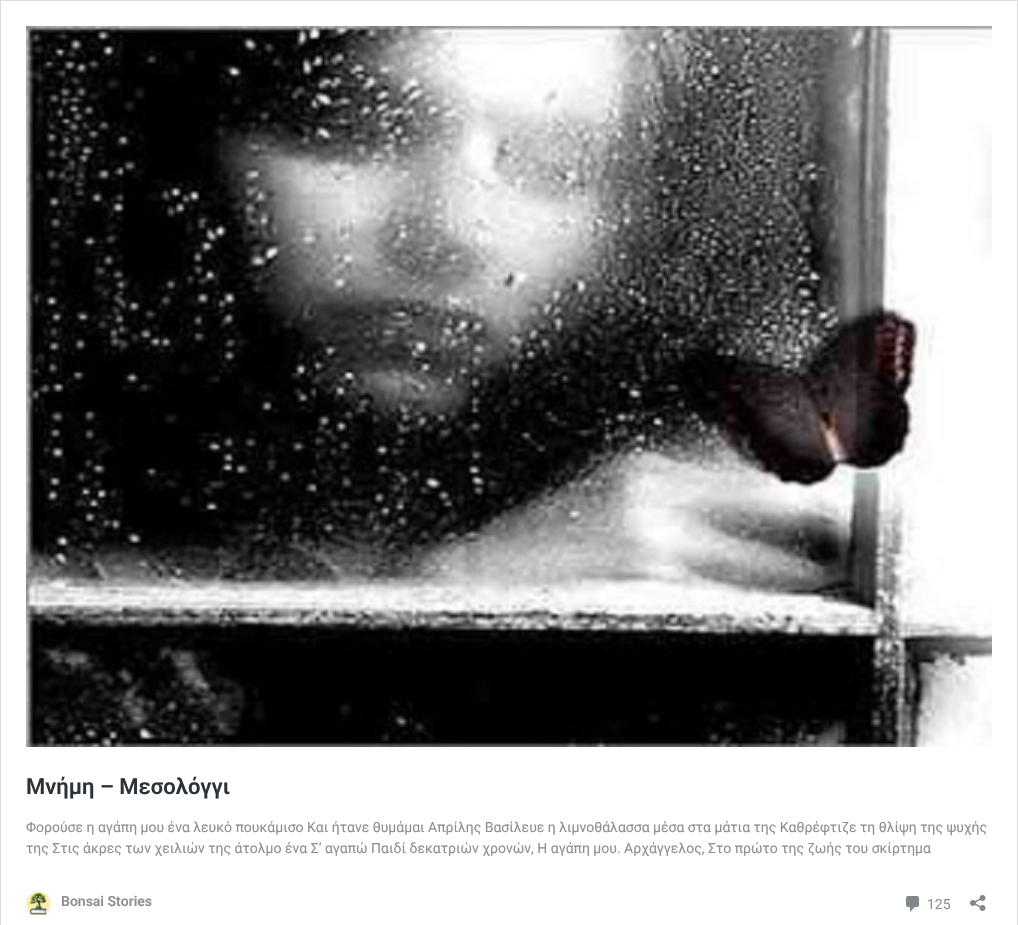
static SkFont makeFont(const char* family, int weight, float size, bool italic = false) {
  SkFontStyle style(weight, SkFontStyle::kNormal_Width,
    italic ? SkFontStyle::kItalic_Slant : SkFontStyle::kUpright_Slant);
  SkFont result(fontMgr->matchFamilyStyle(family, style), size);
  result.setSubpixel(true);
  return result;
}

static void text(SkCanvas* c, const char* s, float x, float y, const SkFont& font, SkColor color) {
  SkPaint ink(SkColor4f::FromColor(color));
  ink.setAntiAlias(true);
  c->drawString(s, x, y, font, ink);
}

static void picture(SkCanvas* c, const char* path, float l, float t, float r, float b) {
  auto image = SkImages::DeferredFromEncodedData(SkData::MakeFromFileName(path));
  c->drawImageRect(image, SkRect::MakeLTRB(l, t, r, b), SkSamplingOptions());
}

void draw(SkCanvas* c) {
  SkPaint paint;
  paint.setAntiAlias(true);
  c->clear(0xffffffff);
  paint.setStyle(SkPaint::kStroke_Style);
  paint.setStrokeWidth(1);
  paint.setColor(0xffdcdcde);
  c->drawRect(SkRect::MakeLTRB(0.5f, 0.5f, 1017.5f, 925.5f), paint);
  picture(c, "img_01.png", 26, 26, 992, 747);
  SkFont face1 = makeFont("Roboto", 600, 22);
  text(c, "Μνήμη – Μεσολόγγι", 26, 794, face1, 0xff2c3338);
  SkFont face2 = makeFont("Roboto", 400, 14);
  text(c, "Φορούσε η αγάπη μου ένα λευκό πουκάμισο Και ήτανε θυμάμαι Απρίλης Βασίλευε η λιμνοθάλασσα μέσα στα μάτια της Καθρέφτιζε τη θλίψη της ψυχής", 26, 832, face2, 0xff8c8f94);
  text(c, "της Στις άκρες των χειλιών της άτολμο ένα Σ’ αγαπώ Παιδί δεκατριών χρονών, Η αγάπη μου. Αρχάγγελος, Στο πρώτο της ζωής του σκίρτημα", 26, 853, face2, 0xff8c8f94);
  picture(c, "img_02.png", 26, 889, 51, 915);
  SkFont face3 = makeFont("Roboto", 600, 14);
  text(c, "Bonsai Stories", 61, 906, face3, 0xff8c8f94);
  picture(c, "img_03.png", 906, 896, 919, 912);
  text(c, "125", 927, 909, face2, 0xff8c8f94);
  picture(c, "img_04.png", 970, 895, 986, 911);
}
